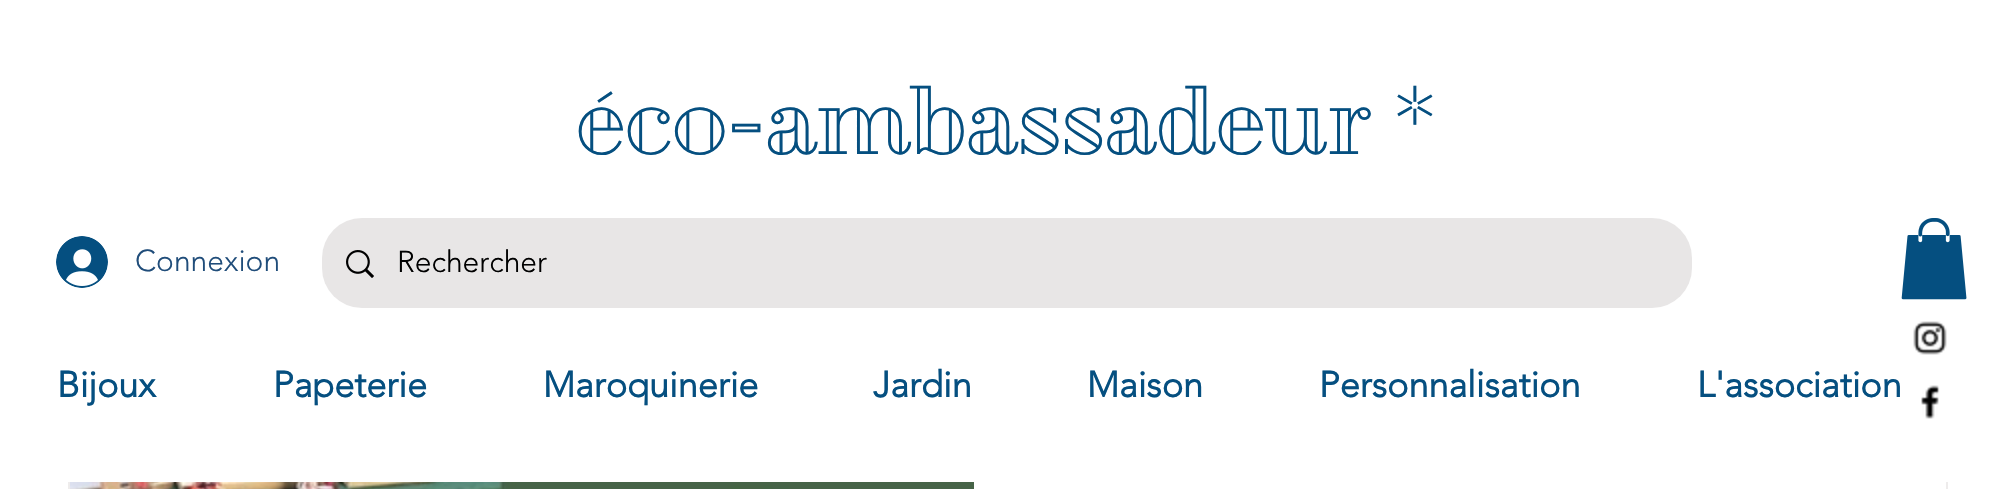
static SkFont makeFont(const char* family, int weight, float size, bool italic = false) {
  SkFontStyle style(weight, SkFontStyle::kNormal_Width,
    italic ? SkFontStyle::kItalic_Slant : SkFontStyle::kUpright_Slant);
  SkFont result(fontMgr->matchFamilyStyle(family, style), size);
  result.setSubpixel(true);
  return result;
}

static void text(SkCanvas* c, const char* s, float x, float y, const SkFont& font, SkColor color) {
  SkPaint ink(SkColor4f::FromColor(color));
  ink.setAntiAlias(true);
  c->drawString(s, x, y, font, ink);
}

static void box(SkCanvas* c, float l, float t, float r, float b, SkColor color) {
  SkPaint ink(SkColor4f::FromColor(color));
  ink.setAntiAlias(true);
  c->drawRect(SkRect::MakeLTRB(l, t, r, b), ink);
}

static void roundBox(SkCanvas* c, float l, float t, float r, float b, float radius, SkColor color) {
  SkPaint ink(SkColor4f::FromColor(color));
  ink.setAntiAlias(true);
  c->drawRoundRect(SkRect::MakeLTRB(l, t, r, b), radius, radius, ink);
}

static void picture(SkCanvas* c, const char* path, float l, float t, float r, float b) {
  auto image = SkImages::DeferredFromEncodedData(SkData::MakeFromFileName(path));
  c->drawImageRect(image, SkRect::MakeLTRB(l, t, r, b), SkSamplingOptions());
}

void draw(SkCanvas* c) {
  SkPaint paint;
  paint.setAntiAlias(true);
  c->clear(0xffffffff);
  paint.setStyle(SkPaint::kStroke_Style);
  paint.setStrokeWidth(2);
  paint.setColor(0xffeeecec);
  c->drawRect(SkRect::MakeLTRB(69, -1, 1947, 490), paint);
  picture(c, "img_01.png", 70, 482, 974, 489);
  box(c, 68, 0, 1948, 482, 0xffffffff);
  SkFont face1 = makeFont("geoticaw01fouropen", 700, 90);
  text(c, "éco-ambassadeur *", 576, 154, face1, 0xff054f80);
  picture(c, "img_02.png", 56, 236, 108, 288);
  SkFont face2 = makeFont("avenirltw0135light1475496", 300, 30);
  text(c, "Connexion", 135, 271, face2, 0xff204d7a);
  roundBox(c, 322, 218, 1692, 308, 40, 0xffe8e6e6);
  picture(c, "img_03.png", 346, 250, 374, 278);
  text(c, "Rechercher", 397, 272, face2, 0xff000000);
  picture(c, "img_04.png", 1901, 218, 1967, 300);
  SkFont face3 = makeFont("avenirltw0135light1475496", 700, 36);
  text(c, "Bijoux", 57, 397, face3, 0xff054f80);
  text(c, "Papeterie", 273, 397, face3, 0xff054f80);
  text(c, "Maroquinerie", 543, 397, face3, 0xff054f80);
  text(c, "Jardin", 873, 397, face3, 0xff054f80);
  text(c, "Maison", 1087, 397, face3, 0xff054f80);
  text(c, "Personnalisation", 1319, 397, face3, 0xff054f80);
  text(c, "L'association", 1697, 397, face3, 0xff054f80);
  picture(c, "img_05.png", 1913, 321, 1947, 355);
  picture(c, "img_06.png", 1921, 385, 1940, 419);
}
